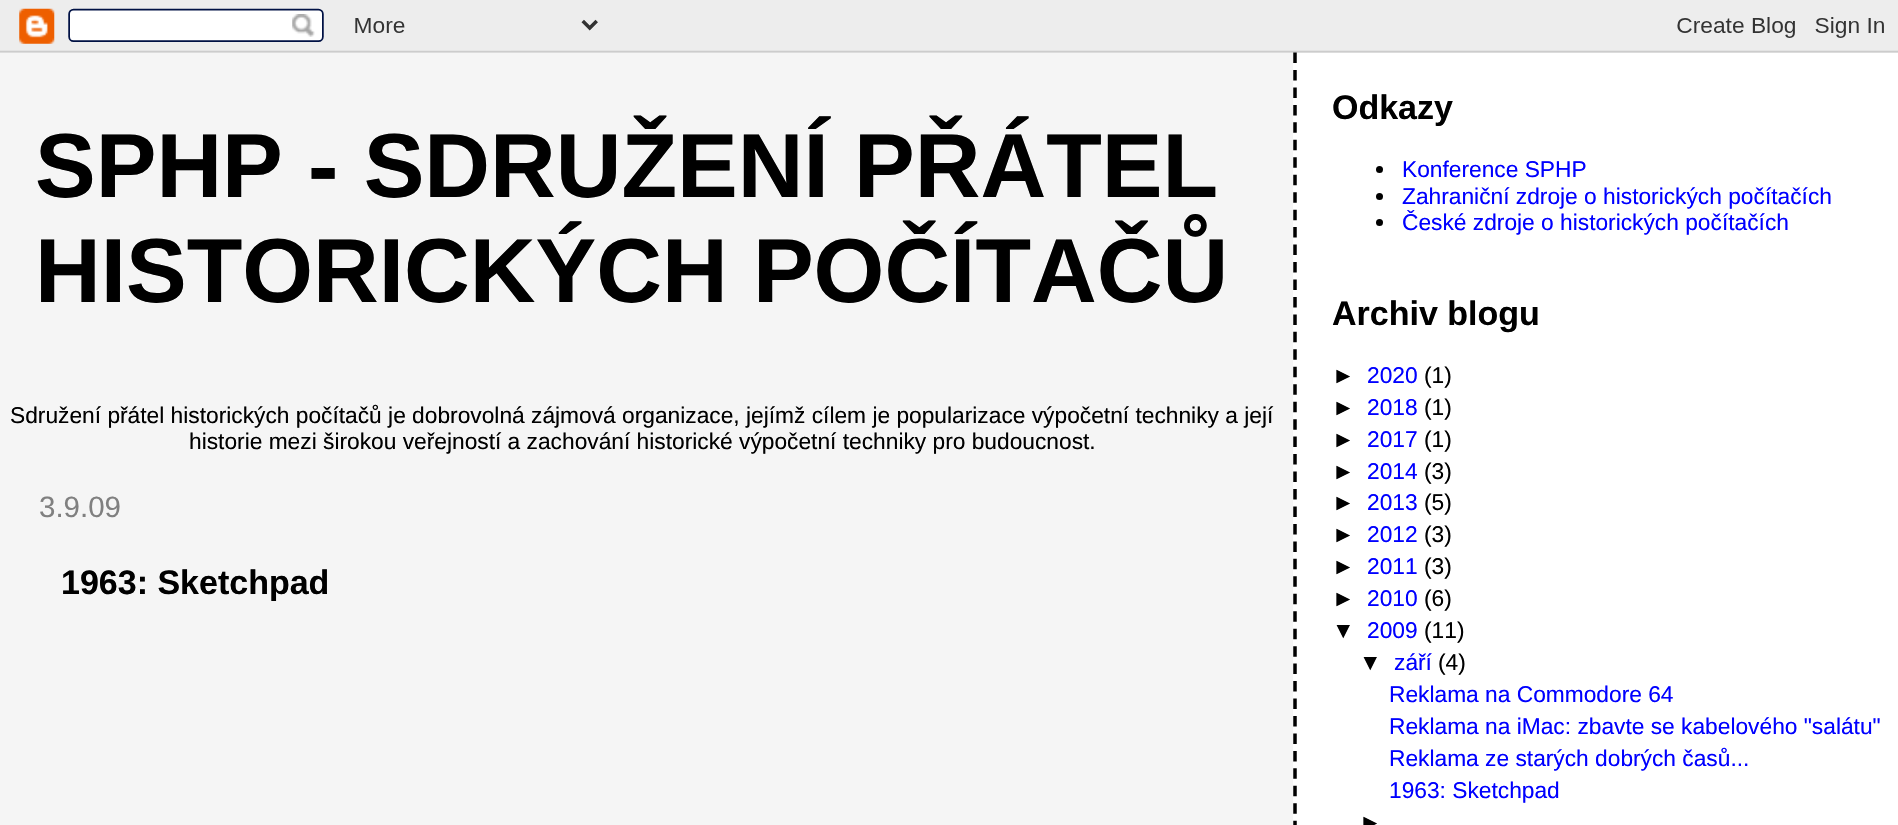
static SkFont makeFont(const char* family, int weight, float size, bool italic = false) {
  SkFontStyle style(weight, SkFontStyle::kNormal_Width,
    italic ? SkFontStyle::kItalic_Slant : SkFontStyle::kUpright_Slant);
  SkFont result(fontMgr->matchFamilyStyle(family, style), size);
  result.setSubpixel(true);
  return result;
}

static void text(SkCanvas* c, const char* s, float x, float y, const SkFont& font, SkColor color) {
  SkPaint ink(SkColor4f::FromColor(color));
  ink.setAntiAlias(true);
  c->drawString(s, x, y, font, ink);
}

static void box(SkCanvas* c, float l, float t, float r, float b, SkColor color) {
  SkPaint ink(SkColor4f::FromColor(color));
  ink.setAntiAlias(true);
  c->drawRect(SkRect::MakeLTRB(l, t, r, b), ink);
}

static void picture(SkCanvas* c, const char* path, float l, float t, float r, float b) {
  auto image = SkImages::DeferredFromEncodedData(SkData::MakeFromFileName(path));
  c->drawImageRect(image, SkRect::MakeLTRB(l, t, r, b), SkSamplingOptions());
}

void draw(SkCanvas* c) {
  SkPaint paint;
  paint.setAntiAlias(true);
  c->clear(0xfff5f5f5);
  picture(c, "img_01.png", 0, 0, 1898, 53);
  SkFont face1 = makeFont("Liberation Sans", 700, 91);
  text(c, "SPHP - SDRUŽENÍ PŘÁTEL", 35, 197, face1, 0xff000000);
  text(c, "HISTORICKÝCH POČÍTAČŮ", 35, 302, face1, 0xff000000);
  SkFont face2 = makeFont("Liberation Sans", 400, 22.75f);
  text(c, "Sdružení přátel historických počítačů je dobrovolná zájmová organizace, jejímž cílem je popularizace výpočetní techniky a její", 10, 423, face2, 0xff000000);
  text(c, "historie mezi širokou veřejností a zachování historické výpočetní techniky pro budoucnost.", 189, 449, face2, 0xff000000);
  SkFont face3 = makeFont("Liberation Sans", 400, 29.5f);
  text(c, "3.9.09", 39, 517, face3, 0xff808080);
  SkFont face4 = makeFont("Liberation Sans", 700, 34);
  text(c, "1963: Sketchpad", 61, 594, face4, 0xff000000);
  box(c, 1293, 53, 1898, 825, 0xffffffff);
  paint.setStyle(SkPaint::kStroke_Style);
  paint.setStrokeWidth(3.5f);
  paint.setColor(0xff000000);
  paint.setPathEffect(SkDashPathEffect::Make({{10.5f, 6.96f}}, 0));
  c->drawPath(SkPathBuilder().moveTo(1295, 52.5f).lineTo(1295, 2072).detach(), paint);
  paint.setPathEffect(nullptr);
  text(c, "Odkazy", 1332, 119, face4, 0xff000000);
  paint.setStyle(SkPaint::kFill_Style);
  c->drawCircle(1379.5f, 169.5f, 3.5f, paint);
  text(c, "Konference SPHP", 1402, 177, face2, 0xff0000ff);
  c->drawCircle(1379.5f, 196.5f, 3.5f, paint);
  text(c, "Zahraniční zdroje o historických počítačích", 1402, 204, face2, 0xff0000ff);
  c->drawCircle(1379.5f, 222.5f, 3.5f, paint);
  text(c, "České zdroje o historických počítačích", 1402, 230, face2, 0xff0000ff);
  text(c, "Archiv blogu", 1332, 325, face4, 0xff000000);
  text(c, "►", 1332, 383, face2, 0xff000000);
  text(c, "2020", 1367, 383, face2, 0xff0000ff);
  text(c, "(1)", 1424, 383, face2, 0xff000000);
  text(c, "►", 1332, 415, face2, 0xff000000);
  text(c, "2018", 1367, 415, face2, 0xff0000ff);
  text(c, "(1)", 1424, 415, face2, 0xff000000);
  text(c, "►", 1332, 447, face2, 0xff000000);
  text(c, "2017", 1367, 447, face2, 0xff0000ff);
  text(c, "(1)", 1424, 447, face2, 0xff000000);
  text(c, "►", 1332, 479, face2, 0xff000000);
  text(c, "2014", 1367, 479, face2, 0xff0000ff);
  text(c, "(3)", 1424, 479, face2, 0xff000000);
  text(c, "►", 1332, 510, face2, 0xff000000);
  text(c, "2013", 1367, 510, face2, 0xff0000ff);
  text(c, "(5)", 1424, 510, face2, 0xff000000);
  text(c, "►", 1332, 542, face2, 0xff000000);
  text(c, "2012", 1367, 542, face2, 0xff0000ff);
  text(c, "(3)", 1424, 542, face2, 0xff000000);
  text(c, "►", 1332, 574, face2, 0xff000000);
  text(c, "2011", 1367, 574, face2, 0xff0000ff);
  text(c, "(3)", 1424, 574, face2, 0xff000000);
  text(c, "►", 1332, 606, face2, 0xff000000);
  text(c, "2010", 1367, 606, face2, 0xff0000ff);
  text(c, "(6)", 1424, 606, face2, 0xff000000);
  text(c, "▼", 1332, 638, face2, 0xff000000);
  text(c, "2009", 1367, 638, face2, 0xff0000ff);
  text(c, "(11)", 1424, 638, face2, 0xff000000);
  text(c, "▼", 1359, 670, face2, 0xff000000);
  text(c, "září", 1394, 670, face2, 0xff0000ff);
  text(c, "(4)", 1438, 670, face2, 0xff000000);
  text(c, "Reklama na Commodore 64", 1389, 702, face2, 0xff0000ff);
  text(c, "Reklama na iMac: zbavte se kabelového \"salátu\"", 1389, 734, face2, 0xff0000ff);
  text(c, "Reklama ze starých dobrých časů...", 1389, 766, face2, 0xff0000ff);
  text(c, "1963: Sketchpad", 1389, 798, face2, 0xff0000ff);
  text(c, "►", 1359, 830, face2, 0xff000000);
}
